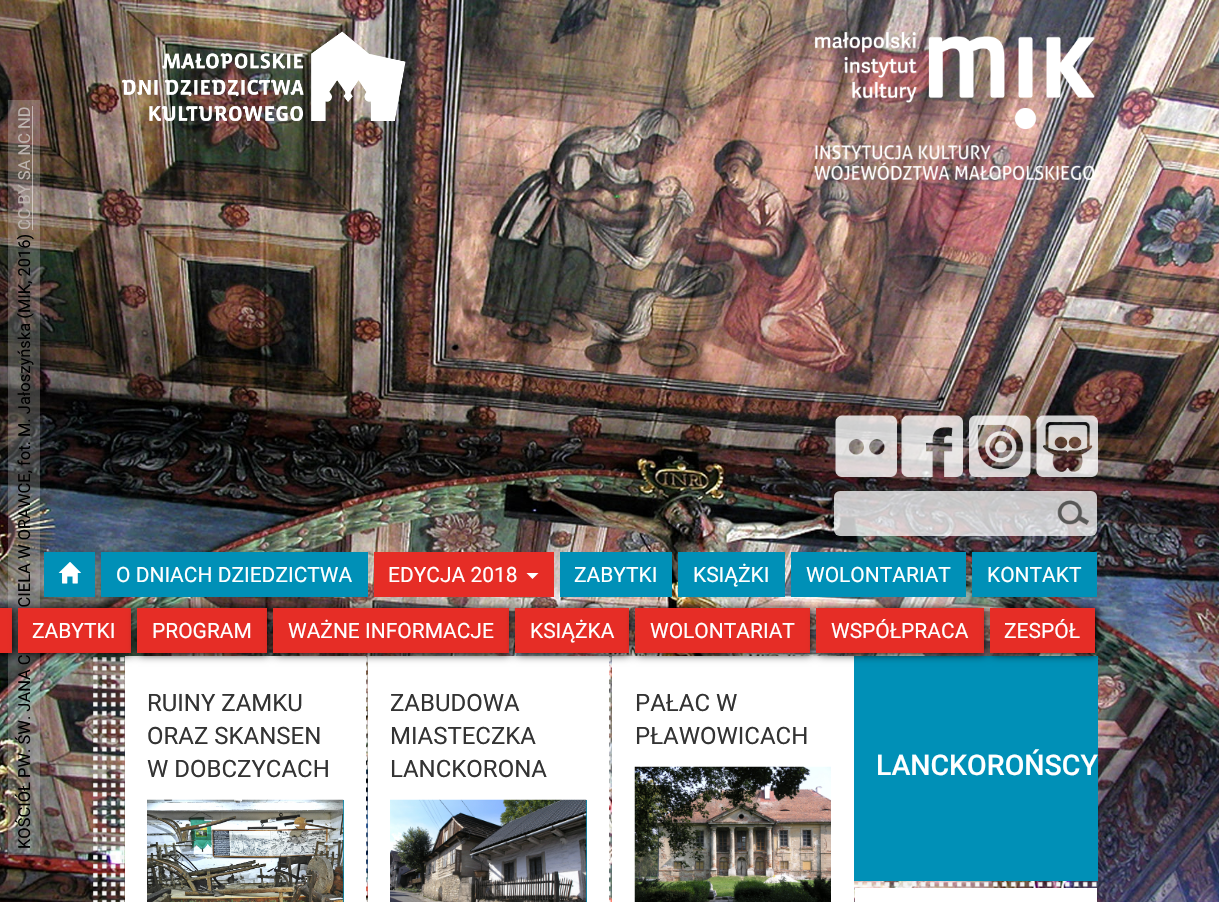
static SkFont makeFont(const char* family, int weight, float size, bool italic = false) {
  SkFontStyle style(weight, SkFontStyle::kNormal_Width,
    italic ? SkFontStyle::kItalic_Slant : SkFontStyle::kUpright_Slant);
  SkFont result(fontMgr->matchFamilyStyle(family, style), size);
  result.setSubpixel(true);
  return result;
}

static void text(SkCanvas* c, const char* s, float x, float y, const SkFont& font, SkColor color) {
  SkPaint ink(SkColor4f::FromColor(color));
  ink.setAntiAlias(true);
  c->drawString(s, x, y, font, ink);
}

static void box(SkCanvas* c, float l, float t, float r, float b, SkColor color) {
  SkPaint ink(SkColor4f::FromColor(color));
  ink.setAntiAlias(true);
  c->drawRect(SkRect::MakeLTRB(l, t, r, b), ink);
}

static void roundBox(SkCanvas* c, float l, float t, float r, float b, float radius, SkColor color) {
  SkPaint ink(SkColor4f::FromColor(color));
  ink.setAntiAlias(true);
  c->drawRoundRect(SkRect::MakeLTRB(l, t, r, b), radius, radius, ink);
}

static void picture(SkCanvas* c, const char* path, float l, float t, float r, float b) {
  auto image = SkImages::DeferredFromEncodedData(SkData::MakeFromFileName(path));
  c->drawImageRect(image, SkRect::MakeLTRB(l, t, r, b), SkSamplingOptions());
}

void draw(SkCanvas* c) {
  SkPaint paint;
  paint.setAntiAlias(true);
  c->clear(0xffffffff);
  picture(c, "img_01.png", 0, 0, 1219, 902);
  box(c, 8, 100, 40, 855, 0x40dbdcd6);
  SkFont face1 = makeFont("Roboto", 400, 16.5f);
  c->save();
  c->rotate(-90, 30, 230);
  text(c, "CC BY SA NC ND", 30, 230, face1, 0xffbeb5b0);
  c->restore();
  box(c, 32, 106, 33, 230, 0x80ffffff);
  c->save();
  c->rotate(-90, 30, 849);
  text(c, "KOŚCIÓŁ PW. ŚW. JANA CHRZCICIELA W ORAWCE, fot. M. Jałoszyńska (MIK, 2016)", 30, 849, face1, 0xff000000);
  c->restore();
  picture(c, "img_02.png", 122, 31, 406, 121);
  picture(c, "img_03.png", 814, 32, 1095, 180);
  picture(c, "img_04.png", 835, 415, 897, 477);
  picture(c, "img_05.png", 901, 415, 963, 477);
  picture(c, "img_06.png", 969, 415, 1031, 477);
  picture(c, "img_07.png", 1036, 415, 1098, 477);
  roundBox(c, 834, 491, 1097, 536, 6, 0xbfffffff);
  picture(c, "img_08.png", 1057, 500, 1089, 525);
  box(c, 44, 552, 95, 597, 0xff0090b7);
  picture(c, "img_09.png", 58, 562, 81, 584);
  box(c, 678, 552, 785, 597, 0xff0090b7);
  SkFont face2 = makeFont("Roboto", 400, 21);
  text(c, "KSIĄŻKI", 693, 582, face2, 0xffffffff);
  box(c, 374, 552, 554, 597, 0xffe62d26);
  text(c, "EDYCJA 2018", 388, 582, face2, 0xffffffff);
  paint.setColor(0xffffffff);
  c->drawPath(SkPathBuilder().moveTo(526.5f, 573).lineTo(538.5f, 573).lineTo(532.5f, 579).close().detach(), paint);
  paint.setColor(0xff000000);
  paint.setMaskFilter(SkMaskFilter::MakeBlur(kNormal_SkBlurStyle, 4.5f));
  c->drawRect(SkRect::MakeLTRB(-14, 609, 14, 654), paint);
  paint.setMaskFilter(nullptr);
  box(c, 0, 608, 12, 653, 0xffe62d26);
  box(c, 101, 552, 368, 597, 0xff0090b7);
  picture(c, "img_10.png", 93, 657, 1097, 902);
  box(c, 125, 656, 366, 902, 0xffffffff);
  paint.setMaskFilter(SkMaskFilter::MakeBlur(kNormal_SkBlurStyle, 4.5f));
  c->drawRect(SkRect::MakeLTRB(20, 609, 132, 654), paint);
  paint.setMaskFilter(nullptr);
  box(c, 18, 608, 131, 653, 0xffe62d26);
  text(c, "ZABYTKI", 32, 638, face2, 0xffffffff);
  paint.setMaskFilter(SkMaskFilter::MakeBlur(kNormal_SkBlurStyle, 4.5f));
  c->drawRect(SkRect::MakeLTRB(138, 609, 269, 654), paint);
  paint.setMaskFilter(nullptr);
  box(c, 137, 608, 267, 653, 0xffe62d26);
  text(c, "PROGRAM", 152, 638, face2, 0xffffffff);
  box(c, 368, 656, 609, 902, 0xffffffff);
  paint.setMaskFilter(SkMaskFilter::MakeBlur(kNormal_SkBlurStyle, 4.5f));
  c->drawRect(SkRect::MakeLTRB(275, 609, 510, 654), paint);
  paint.setMaskFilter(nullptr);
  box(c, 273, 608, 509, 653, 0xffe62d26);
  text(c, "WAŻNE INFORMACJE", 288, 638, face2, 0xffffffff);
  box(c, 560, 552, 672, 597, 0xff0090b7);
  box(c, 612, 656, 854, 902, 0xffffffff);
  paint.setMaskFilter(SkMaskFilter::MakeBlur(kNormal_SkBlurStyle, 4.5f));
  c->drawRect(SkRect::MakeLTRB(516, 609, 630, 654), paint);
  paint.setMaskFilter(nullptr);
  box(c, 515, 608, 629, 653, 0xffe62d26);
  text(c, "KSIĄŻKA", 530, 638, face2, 0xffffffff);
  box(c, 791, 552, 966, 597, 0xff0090b7);
  paint.setMaskFilter(SkMaskFilter::MakeBlur(kNormal_SkBlurStyle, 4.5f));
  c->drawRect(SkRect::MakeLTRB(636, 609, 812, 654), paint);
  paint.setMaskFilter(nullptr);
  box(c, 635, 608, 810, 653, 0xffe62d26);
  text(c, "WOLONTARIAT", 650, 638, face2, 0xffffffff);
  box(c, 972, 552, 1097, 597, 0xff0090b7);
  box(c, 854, 656, 1098, 881, 0xff0090b7);
  paint.setMaskFilter(SkMaskFilter::MakeBlur(kNormal_SkBlurStyle, 4.5f));
  c->drawRect(SkRect::MakeLTRB(818, 609, 986, 654), paint);
  paint.setMaskFilter(nullptr);
  box(c, 816, 608, 984, 653, 0xffe62d26);
  text(c, "WSPÓŁPRACA", 831, 638, face2, 0xffffffff);
  paint.setMaskFilter(SkMaskFilter::MakeBlur(kNormal_SkBlurStyle, 4.5f));
  c->drawRect(SkRect::MakeLTRB(992, 609, 1097, 654), paint);
  paint.setMaskFilter(nullptr);
  box(c, 990, 608, 1095, 653, 0xffe62d26);
  text(c, "ZESPÓŁ", 1004, 638, face2, 0xffffffff);
  text(c, "O DNIACH DZIEDZICTWA", 116, 582, face2, 0xffffffff);
  text(c, "ZABYTKI", 574, 582, face2, 0xffffffff);
  text(c, "WOLONTARIAT", 806, 582, face2, 0xffffffff);
  text(c, "KONTAKT", 987, 582, face2, 0xffffffff);
  SkFont face3 = makeFont("Roboto", 400, 24);
  text(c, "RUINY ZAMKU", 147, 711, face3, 0xff333333);
  text(c, "ORAZ SKANSEN", 147, 744, face3, 0xff333333);
  text(c, "W DOBCZYCACH", 147, 777, face3, 0xff333333);
  box(c, 343, 800, 344, 902, 0xff0090b7);
  picture(c, "img_11.png", 147, 799, 344, 902);
  text(c, "ZABUDOWA", 390, 711, face3, 0xff333333);
  text(c, "MIASTECZKA", 390, 744, face3, 0xff333333);
  text(c, "LANCKORONA", 390, 777, face3, 0xff333333);
  box(c, 586, 800, 587, 902, 0xff0090b7);
  picture(c, "img_12.png", 390, 799, 587, 902);
  text(c, "PAŁAC W", 635, 711, face3, 0xff333333);
  text(c, "PŁAWOWICACH", 635, 744, face3, 0xff333333);
  picture(c, "img_13.png", 634, 766, 831, 902);
  SkFont face4 = makeFont("Roboto", 500, 28.5f);
  text(c, "LANCKOROŃSCY", 876, 775, face4, 0xffffffff);
  box(c, 855, 888, 1097, 902, 0xffffffff);
}
